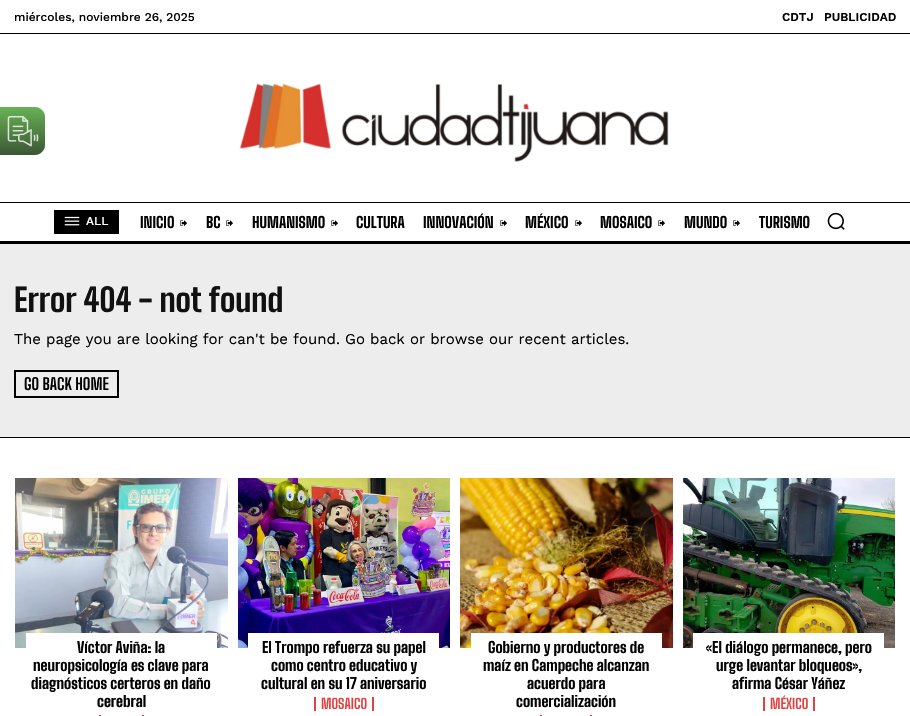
static SkFont makeFont(const char* family, int weight, float size, bool italic = false) {
  SkFontStyle style(weight, SkFontStyle::kNormal_Width,
    italic ? SkFontStyle::kItalic_Slant : SkFontStyle::kUpright_Slant);
  SkFont result(fontMgr->matchFamilyStyle(family, style), size);
  result.setSubpixel(true);
  return result;
}

static void text(SkCanvas* c, const char* s, float x, float y, const SkFont& font, SkColor color) {
  SkPaint ink(SkColor4f::FromColor(color));
  ink.setAntiAlias(true);
  c->drawString(s, x, y, font, ink);
}

static void box(SkCanvas* c, float l, float t, float r, float b, SkColor color) {
  SkPaint ink(SkColor4f::FromColor(color));
  ink.setAntiAlias(true);
  c->drawRect(SkRect::MakeLTRB(l, t, r, b), ink);
}

static void picture(SkCanvas* c, const char* path, float l, float t, float r, float b) {
  auto image = SkImages::DeferredFromEncodedData(SkData::MakeFromFileName(path));
  c->drawImageRect(image, SkRect::MakeLTRB(l, t, r, b), SkSamplingOptions());
}

void draw(SkCanvas* c) {
  SkPaint paint;
  paint.setAntiAlias(true);
  c->clear(0xffffffff);
  SkFont face1 = makeFont("Work Sans", 500, 12);
  text(c, "miércoles, noviembre 26, 2025", 14, 21, face1, 0xff000000);
  SkFont face2 = makeFont("Work Sans", 600, 12);
  text(c, "CDTJ", 782, 21, face2, 0xff000000);
  text(c, "PUBLICIDAD", 824, 21, face2, 0xff000000);
  box(c, 0, 33, 910, 34, 0xff000000);
  picture(c, "img_01.png", 239, 83, 669, 162);
  box(c, 0, 202, 910, 203, 0xff000000);
  box(c, 0, 241, 910, 244, 0xff000000);
  box(c, 54, 210, 119, 234, 0xff000000);
  picture(c, "img_02.png", 64, 216, 80, 226);
  text(c, "ALL", 86, 225, face1, 0xffffffff);
  SkFont face3 = makeFont("Big Shoulders Text", 800, 15);
  text(c, "INICIO", 140, 228, face3, 0xff000000);
  picture(c, "img_03.png", 180, 220, 187, 226);
  text(c, "BC", 206, 228, face3, 0xff000000);
  picture(c, "img_03.png", 226, 220, 233, 226);
  text(c, "HUMANISMO", 252, 228, face3, 0xff000000);
  picture(c, "img_03.png", 331, 220, 338, 226);
  text(c, "CULTURA", 356, 228, face3, 0xff000000);
  text(c, "INNOVACIÓN", 423, 228, face3, 0xff000000);
  picture(c, "img_03.png", 500, 220, 507, 226);
  text(c, "MÉXICO", 525, 228, face3, 0xff000000);
  picture(c, "img_03.png", 575, 220, 582, 226);
  text(c, "MOSAICO", 600, 228, face3, 0xff000000);
  picture(c, "img_03.png", 658, 220, 665, 226);
  text(c, "MUNDO", 684, 228, face3, 0xff000000);
  picture(c, "img_03.png", 733, 220, 740, 226);
  text(c, "TURISMO", 759, 228, face3, 0xff000000);
  picture(c, "img_04.png", 827, 212, 845, 230);
  box(c, 0, 244, 910, 437, 0xffededed);
  box(c, 0, 437, 910, 438, 0xff000000);
  SkFont face4 = makeFont("Big Shoulders Text", 800, 32);
  text(c, "Error 404 - not found", 14, 312, face4, 0xff111111);
  SkFont face5 = makeFont("Work Sans", 400, 15);
  text(c, "The page you are looking for can't be found. Go back or browse our recent articles.", 14, 344, face5, 0xff000000);
  paint.setStyle(SkPaint::kStroke_Style);
  paint.setStrokeWidth(2);
  paint.setColor(0xff000000);
  c->drawRect(SkRect::MakeLTRB(15, 371, 118, 397), paint);
  SkFont face6 = makeFont("Big Shoulders Text", 700, 16);
  text(c, "GO BACK HOME", 24, 390, face6, 0xff000000);
  picture(c, "img_05.png", 15, 478, 228, 648);
  box(c, 26, 633, 217, 648, 0xffffffff);
  text(c, "Víctor Aviña: la", 77, 653, face3, 0xff000000);
  text(c, "neuropsicología es clave para", 33, 671, face3, 0xff000000);
  text(c, "diagnósticos certeros en daño", 31, 689, face3, 0xff000000);
  text(c, "cerebral", 97, 707, face3, 0xff000000);
  box(c, 142, 715, 144, 716, 0xffe04040);
  box(c, 99, 715, 101, 716, 0xffe04040);
  picture(c, "img_06.png", 238, 478, 450, 648);
  box(c, 248, 633, 439, 648, 0xffffffff);
  text(c, "El Trompo refuerza su papel", 262, 653, face3, 0xff000000);
  text(c, "como centro educativo y", 271, 671, face3, 0xff000000);
  text(c, "cultural en su 17 aniversario", 261, 689, face3, 0xff000000);
  box(c, 372, 697, 374, 711, 0xffe04040);
  box(c, 314, 697, 316, 711, 0xffe04040);
  SkFont face7 = makeFont("Big Shoulders Text", 700, 14);
  text(c, "MOSAICO", 321, 709, face7, 0xffe04040);
  picture(c, "img_07.png", 460, 478, 673, 648);
  box(c, 471, 633, 662, 648, 0xffffffff);
  text(c, "Gobierno y productores de", 488, 653, face3, 0xff000000);
  text(c, "maíz en Campeche alcanzan", 483, 671, face3, 0xff000000);
  text(c, "acuerdo para", 527, 689, face3, 0xff000000);
  text(c, "comercialización", 516, 707, face3, 0xff000000);
  box(c, 590, 715, 592, 716, 0xffe04040);
  box(c, 540, 715, 542, 716, 0xffe04040);
  picture(c, "img_08.png", 683, 478, 895, 648);
  box(c, 693, 633, 884, 648, 0xffffffff);
  text(c, "«El diálogo permanece, pero", 706, 653, face3, 0xff000000);
  text(c, "urge levantar bloqueos»,", 716, 671, face3, 0xff000000);
  text(c, "afirma César Yáñez", 732, 689, face3, 0xff000000);
  box(c, 813, 697, 815, 711, 0xffe04040);
  box(c, 763, 697, 765, 711, 0xffe04040);
  text(c, "MÉXICO", 770, 709, face7, 0xffe04040);
  paint.setStyle(SkPaint::kFill_Style);
  {
    const SkColor colors[] = {0xff68b255, 0xff3c5635};
    const float stops[] = {0, 1};
    const SkPoint ends[] = {{22, 107}, {23, 155}};
    paint.setShader(SkGradientShader::MakeLinear(ends, colors, stops, 2, SkTileMode::kClamp));
    paint.setAlpha(255);
  }
  c->drawPath(SkPathBuilder().moveTo(0, 107).lineTo(35, 107).cubicTo(40.5f, 107, 45, 111.5f, 45, 117).lineTo(45, 145).cubicTo(45, 150.5f, 40.5f, 155, 35, 155).lineTo(0, 155).close().detach(), paint);
  picture(c, "img_09.png", 7, 116, 39, 147);
}
